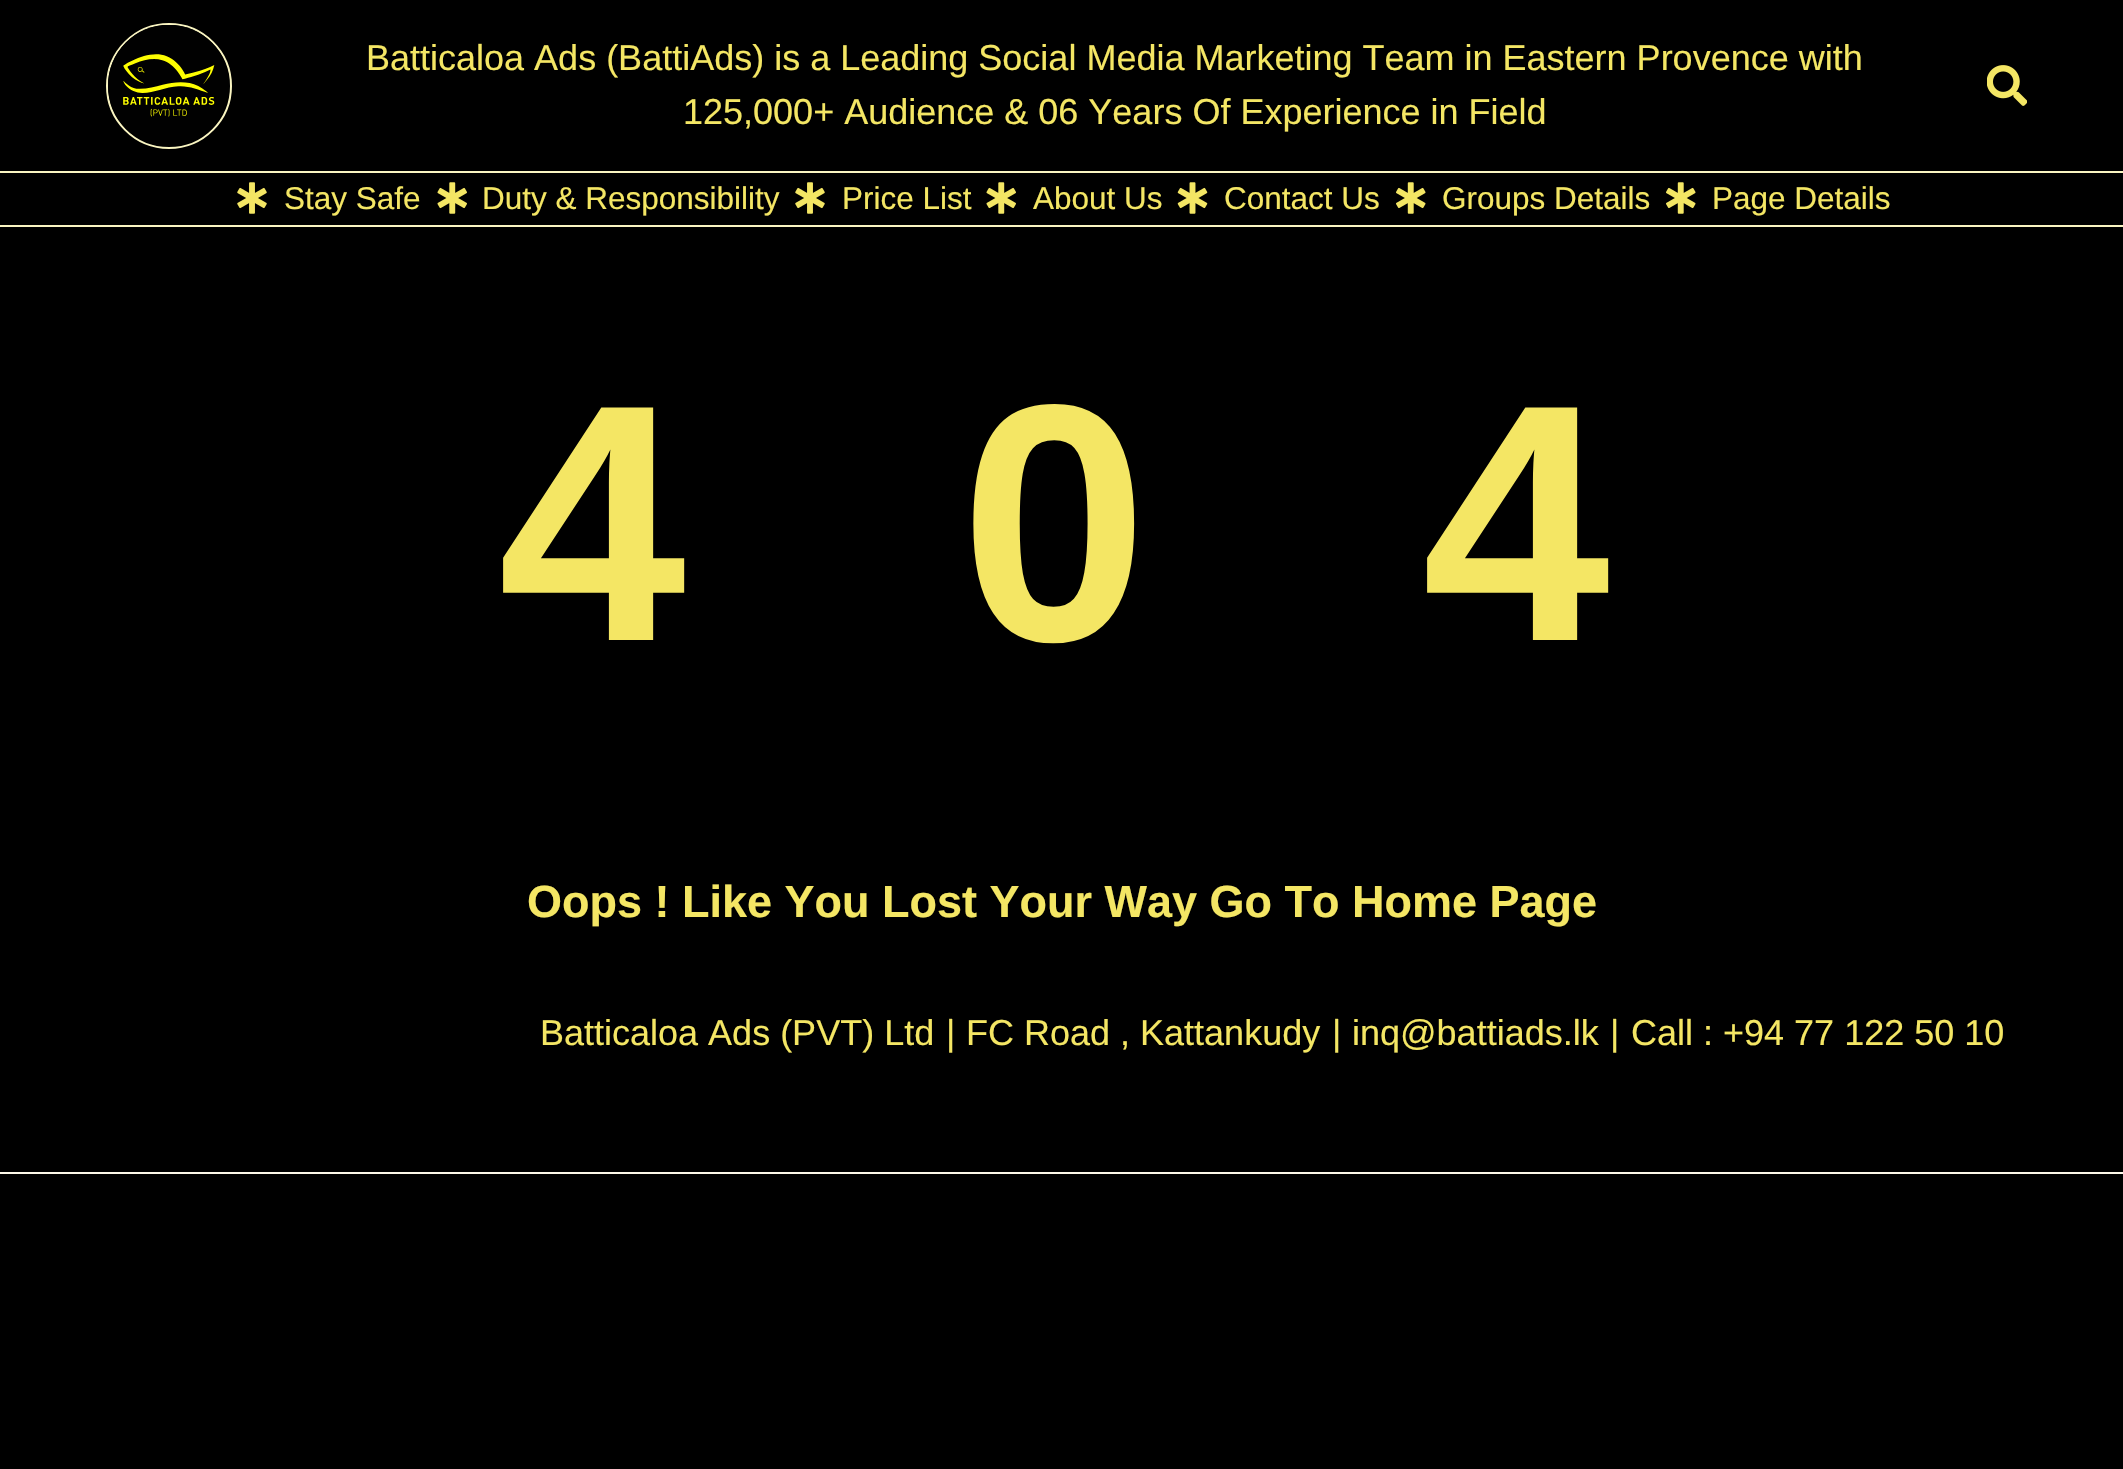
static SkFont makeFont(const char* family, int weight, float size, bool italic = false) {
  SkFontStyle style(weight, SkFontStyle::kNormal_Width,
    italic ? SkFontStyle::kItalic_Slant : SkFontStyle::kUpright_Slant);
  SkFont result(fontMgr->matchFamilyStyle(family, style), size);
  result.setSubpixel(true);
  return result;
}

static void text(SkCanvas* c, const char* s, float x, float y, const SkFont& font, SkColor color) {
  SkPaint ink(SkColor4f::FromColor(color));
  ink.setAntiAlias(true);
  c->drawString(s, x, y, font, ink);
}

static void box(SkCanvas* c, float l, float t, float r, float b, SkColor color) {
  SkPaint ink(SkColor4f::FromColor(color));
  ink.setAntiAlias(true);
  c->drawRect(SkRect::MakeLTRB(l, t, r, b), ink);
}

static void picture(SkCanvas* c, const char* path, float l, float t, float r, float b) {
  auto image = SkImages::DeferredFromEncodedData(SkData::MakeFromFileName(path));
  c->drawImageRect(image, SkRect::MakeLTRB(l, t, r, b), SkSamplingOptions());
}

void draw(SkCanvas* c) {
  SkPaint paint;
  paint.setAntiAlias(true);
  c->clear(0xff000000);
  box(c, 0, 171, 2123, 173, 0xfffaf5c1);
  paint.setStyle(SkPaint::kStroke_Style);
  paint.setStrokeWidth(2);
  paint.setColor(0xfffaf5c1);
  c->drawCircle(169, 86, 62, paint);
  picture(c, "img_01.png", 108, 25, 230, 146);
  SkFont face1 = makeFont("Liberation Sans", 400, 36);
  text(c, "Batticaloa Ads (BattiAds) is a Leading Social Media Marketing Team in Eastern Provence with", 366, 70, face1, 0xfff4e664);
  text(c, "125,000+ Audience & 06 Years Of Experience in Field", 683, 124, face1, 0xfff4e664);
  picture(c, "img_02.png", 1987, 65, 2027, 106);
  box(c, 0, 225, 2123, 227, 0xfffaf5c1);
  picture(c, "img_03.png", 237, 182, 267, 214);
  SkFont face2 = makeFont("Liberation Sans", 400, 31.5f);
  text(c, "Stay Safe", 284, 209, face2, 0xfff4e664);
  picture(c, "img_04.png", 437, 182, 467, 214);
  text(c, "Duty & Responsibility", 482, 209, face2, 0xfff4e664);
  picture(c, "img_03.png", 795, 182, 825, 214);
  text(c, "Price List", 842, 209, face2, 0xfff4e664);
  picture(c, "img_04.png", 986, 182, 1016, 214);
  text(c, "About Us", 1033, 209, face2, 0xfff4e664);
  picture(c, "img_05.png", 1177, 182, 1208, 214);
  text(c, "Contact Us", 1224, 209, face2, 0xfff4e664);
  picture(c, "img_06.png", 1396, 182, 1426, 214);
  text(c, "Groups Details", 1442, 209, face2, 0xfff4e664);
  picture(c, "img_06.png", 1666, 182, 1696, 214);
  text(c, "Page Details", 1712, 209, face2, 0xfff4e664);
  SkFont face3 = makeFont("Liberation Sans", 700, 338);
  text(c, "4", 498, 640, face3, 0xfff4e664);
  text(c, "0", 960, 640, face3, 0xfff4e664);
  text(c, "4", 1422, 640, face3, 0xfff4e664);
  SkFont face4 = makeFont("Liberation Sans", 700, 45);
  text(c, "Oops ! Like You Lost Your Way Go To Home Page", 527, 917, face4, 0xfff4e664);
  box(c, 0, 1172, 2123, 1174, 0xfffdf8e9);
  text(c, "Batticaloa Ads (PVT) Ltd", 540, 1045, face1, 0xfff4e664);
  text(c, "|", 946, 1045, face1, 0xfff4e664);
  text(c, "FC Road , Kattankudy", 966, 1045, face1, 0xfff4e664);
  text(c, "|", 1332, 1045, face1, 0xfff4e664);
  text(c, "inq@battiads.lk", 1352, 1045, face1, 0xfff4e664);
  text(c, "|", 1610, 1045, face1, 0xfff4e664);
  text(c, "Call : +94 77 122 50 10", 1631, 1045, face1, 0xfff4e664);
}
